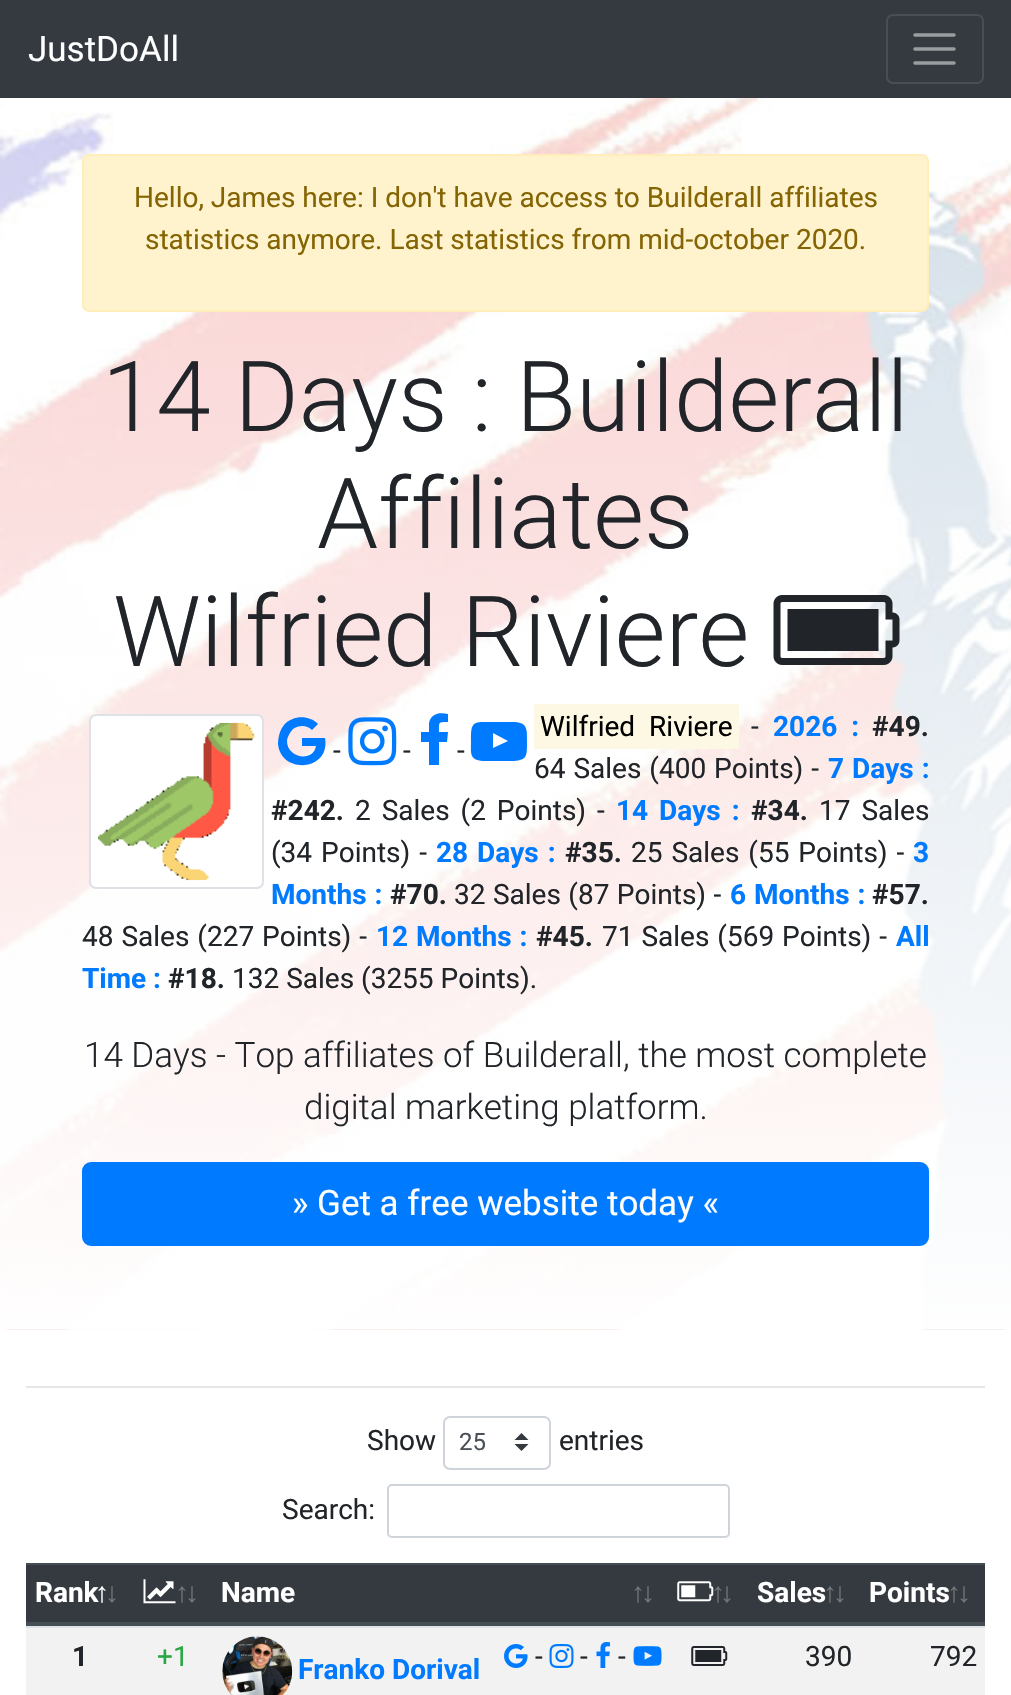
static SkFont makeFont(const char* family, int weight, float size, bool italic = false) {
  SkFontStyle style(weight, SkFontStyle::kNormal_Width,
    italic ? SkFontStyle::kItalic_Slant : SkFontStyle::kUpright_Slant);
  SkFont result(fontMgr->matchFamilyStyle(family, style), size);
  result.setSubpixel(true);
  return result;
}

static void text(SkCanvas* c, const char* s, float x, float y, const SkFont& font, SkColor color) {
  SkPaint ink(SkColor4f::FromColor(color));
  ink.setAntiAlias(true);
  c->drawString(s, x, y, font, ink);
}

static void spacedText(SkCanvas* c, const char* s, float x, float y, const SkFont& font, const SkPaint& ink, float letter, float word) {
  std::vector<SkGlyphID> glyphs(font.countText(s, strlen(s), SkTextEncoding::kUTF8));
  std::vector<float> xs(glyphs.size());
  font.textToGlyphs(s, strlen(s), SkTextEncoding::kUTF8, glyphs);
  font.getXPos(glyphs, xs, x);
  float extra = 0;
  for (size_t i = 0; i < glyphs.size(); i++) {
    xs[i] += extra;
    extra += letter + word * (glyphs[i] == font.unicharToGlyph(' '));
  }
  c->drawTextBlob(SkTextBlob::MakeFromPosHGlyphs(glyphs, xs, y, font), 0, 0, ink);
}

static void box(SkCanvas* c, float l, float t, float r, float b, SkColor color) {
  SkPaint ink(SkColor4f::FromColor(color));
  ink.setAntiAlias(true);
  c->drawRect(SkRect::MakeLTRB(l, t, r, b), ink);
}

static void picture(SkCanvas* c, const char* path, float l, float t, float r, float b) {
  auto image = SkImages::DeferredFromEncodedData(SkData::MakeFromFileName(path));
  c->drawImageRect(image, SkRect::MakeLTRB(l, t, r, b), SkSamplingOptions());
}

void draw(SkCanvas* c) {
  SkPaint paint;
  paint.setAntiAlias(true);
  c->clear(0xffffffff);
  box(c, 0, 0, 1011, 98, 0xff343a40);
  SkFont face1 = makeFont("Roboto", 400, 35);
  text(c, "JustDoAll", 28, 61, face1, 0xffffffff);
  paint.setStyle(SkPaint::kStroke_Style);
  paint.setStrokeWidth(2);
  paint.setColor(0xff484e53);
  c->drawRoundRect(SkRect::MakeLTRB(887, 15, 983, 83), 6, 6, paint);
  paint.setStrokeWidth(3.5f);
  paint.setStrokeCap(SkPaint::kRound_Cap);
  paint.setColor(0xff9a9da0);
  c->drawPath(SkPathBuilder().moveTo(915, 35).lineTo(954, 35).moveTo(915, 49).lineTo(954, 49).moveTo(915, 63).lineTo(954, 63).detach(), paint);
  picture(c, "img_01.png", 0, 98, 1011, 1330);
  paint.setStyle(SkPaint::kFill_Style);
  paint.setColor(0xfffff3cd);
  c->drawRoundRect(SkRect::MakeLTRB(83, 155, 928, 311), 6, 6, paint);
  paint.setStyle(SkPaint::kStroke_Style);
  paint.setStrokeWidth(2);
  paint.setStrokeCap(SkPaint::kButt_Cap);
  paint.setColor(0xffffeeba);
  c->drawRoundRect(SkRect::MakeLTRB(83, 155, 928, 311), 6, 6, paint);
  SkFont face2 = makeFont("Roboto", 400, 28);
  text(c, "Hello, James here: I don't have access to Builderall affiliates", 134, 207, face2, 0xff856404);
  text(c, "statistics anymore. Last statistics from mid-october 2020.", 145, 249, face2, 0xff856404);
  SkFont face3 = makeFont("Roboto", 300, 98);
  text(c, "14 Days : Builderall", 102, 431, face3, 0xff212529);
  text(c, "Affiliates", 317, 548, face3, 0xff212529);
  text(c, "Wilfried Riviere", 113, 666, face3, 0xff212529);
  picture(c, "img_02.png", 773, 595, 900, 665);
  box(c, 534, 704, 739, 749, 0xfffcf8e3);
  paint.setStyle(SkPaint::kFill_Style);
  paint.setColor(0xff000000);
  spacedText(c, "Wilfried Riviere", 540, 736, face2, paint, 0, 7);
  text(c, "-", 751, 736, face2, 0xff212529);
  SkFont face4 = makeFont("Roboto", 700, 28);
  paint.setColor(0xff007bff);
  spacedText(c, "2026 :", 773, 736, face4, paint, 0, 7);
  text(c, "#49.", 872, 736, face4, 0xff212529);
  paint.setColor(0xff212529);
  spacedText(c, "64 Sales (400 Points) -", 534, 778, face2, paint, 0, 1);
  paint.setColor(0xff007bff);
  spacedText(c, "7 Days :", 828, 778, face4, paint, 0, 1);
  text(c, "#242.", 271, 820, face4, 0xff212529);
  paint.setColor(0xff212529);
  spacedText(c, "2 Sales (2 Points) -", 355, 820, face2, paint, 0, 4);
  paint.setColor(0xff007bff);
  spacedText(c, "14 Days :", 616, 820, face4, paint, 0, 4);
  text(c, "#34.", 751, 820, face4, 0xff212529);
  paint.setColor(0xff212529);
  spacedText(c, "17 Sales", 819, 820, face2, paint, 0, 4);
  spacedText(c, "(34 Points) -", 271, 862, face2, paint, 0, 2);
  paint.setColor(0xff007bff);
  spacedText(c, "28 Days :", 436, 862, face4, paint, 0, 2);
  text(c, "#35.", 565, 862, face4, 0xff212529);
  paint.setColor(0xff212529);
  spacedText(c, "25 Sales (55 Points) -", 631, 862, face2, paint, 0, 2);
  text(c, "3", 913, 862, face4, 0xff007bff);
  paint.setColor(0xff007bff);
  spacedText(c, "Months :", 271, 904, face4, paint, 0, 1);
  text(c, "#70.", 390, 904, face4, 0xff212529);
  paint.setColor(0xff212529);
  spacedText(c, "32 Sales (87 Points) -", 454, 904, face2, paint, 0, 0.5f);
  paint.setColor(0xff007bff);
  spacedText(c, "6 Months :", 730, 904, face4, paint, 0, 1);
  text(c, "#57.", 872, 904, face4, 0xff212529);
  paint.setColor(0xff212529);
  spacedText(c, "48 Sales (227 Points) -", 82, 946, face2, paint, 0, 1);
  paint.setColor(0xff007bff);
  spacedText(c, "12 Months :", 376, 946, face4, paint, 0, 1);
  text(c, "#45.", 536, 946, face4, 0xff212529);
  paint.setColor(0xff212529);
  spacedText(c, "71 Sales (569 Points) -", 602, 946, face2, paint, 0, 1);
  text(c, "All", 896, 946, face4, 0xff007bff);
  text(c, "Time :", 82, 988, face4, 0xff007bff);
  text(c, "#18.", 168, 988, face4, 0xff212529);
  text(c, "132 Sales (3255 Points).", 232, 988, face2, 0xff212529);
  paint.setColor(0xffffffff);
  c->drawRoundRect(SkRect::MakeLTRB(90, 715, 263, 888), 6, 6, paint);
  paint.setStyle(SkPaint::kStroke_Style);
  paint.setColor(0xffdee2e6);
  c->drawRoundRect(SkRect::MakeLTRB(90, 715, 263, 888), 6, 6, paint);
  picture(c, "img_03.png", 98, 722, 255, 881);
  paint.setStyle(SkPaint::kFill_Style);
  paint.setColor(0xff007bff);
  c->drawPath(SkPathBuilder().moveTo(302, 738).lineTo(325, 738).cubicTo(331, 771, 281, 775, 278, 744).cubicTo(278, 737, 280, 730, 284, 725).cubicTo(293, 715, 309, 715, 318, 724).lineTo(312, 730).cubicTo(307, 725, 299, 725, 293, 729).cubicTo(290, 732, 288, 736, 287, 740).cubicTo(286, 758, 313, 763, 316, 746).lineTo(302, 746).close().detach(), paint);
  text(c, "-", 333, 760, face2, 0xff212529);
  picture(c, "img_04.png", 348, 717, 397, 766);
  text(c, "-", 403, 760, face2, 0xff212529);
  c->drawPath(SkPathBuilder().moveTo(448, 714).lineTo(448, 722).cubicTo(438, 722, 439, 722, 439, 732).lineTo(448, 732).lineTo(447, 742).lineTo(439, 742).lineTo(439, 765).lineTo(429, 765).lineTo(429, 742).lineTo(421, 742).lineTo(421, 732).lineTo(429, 732).lineTo(429, 723).cubicTo(431, 713, 440, 712, 448, 714).close().detach(), paint);
  text(c, "-", 457, 760, face2, 0xff212529);
  c->drawPath(SkPathBuilder().moveTo(493, 748).lineTo(508, 741).lineTo(493, 733).close().moveTo(499, 722).lineTo(515, 722).cubicTo(528, 723, 527, 730, 527, 742).cubicTo(527, 756, 527, 760, 514, 761).lineTo(483, 761).cubicTo(469, 760, 471, 753, 471, 741).cubicTo(471, 727, 471, 722, 483, 722).close().detach(), paint);
  SkFont face5 = makeFont("Roboto", 300, 35);
  text(c, "14 Days - Top affiliates of Builderall, the most complete", 84, 1067, face5, 0xff212529);
  text(c, "digital marketing platform.", 304, 1119, face5, 0xff212529);
  c->drawRoundRect(SkRect::MakeLTRB(83, 1163, 928, 1245), 8, 8, paint);
  paint.setStyle(SkPaint::kStroke_Style);
  c->drawRoundRect(SkRect::MakeLTRB(83, 1163, 928, 1245), 8, 8, paint);
  text(c, "» Get a free website today «", 292, 1215, face1, 0xffffffff);
  box(c, 26, 1386, 985, 1388, 0xffe6e6e6);
  text(c, "Show", 367, 1450, face2, 0xff212529);
  paint.setStyle(SkPaint::kFill_Style);
  paint.setColor(0xff343a40);
  c->drawPath(SkPathBuilder().moveTo(521.5f, 1433).lineTo(514.5f, 1440).lineTo(528.5f, 1440).close().moveTo(521.5f, 1451).lineTo(514.5f, 1444).lineTo(528.5f, 1444).close().detach(), paint);
  paint.setStyle(SkPaint::kStroke_Style);
  paint.setColor(0xffced4da);
  c->drawRoundRect(SkRect::MakeLTRB(444, 1417, 550, 1469), 6, 6, paint);
  SkFont face6 = makeFont("Roboto", 400, 24);
  text(c, "25", 459, 1450, face6, 0xff495057);
  text(c, "entries", 559, 1450, face2, 0xff212529);
  text(c, "Search:", 282, 1519, face2, 0xff212529);
  c->drawRoundRect(SkRect::MakeLTRB(388, 1485, 729, 1537), 4, 4, paint);
  box(c, 26, 1565, 985, 1622, 0xff343a40);
  box(c, 26, 1563, 985, 1565, 0xff454d55);
  box(c, 26, 1622, 985, 1626, 0xff454d55);
  text(c, "Rank", 35, 1602, face4, 0xffffffff);
  SkFont face7 = makeFont("Liberation Sans", 700, 28);
  text(c, "↑", 95, 1602, face7, 0xffffffff);
  text(c, "↓", 105, 1602, face7, 0xff717579);
  picture(c, "img_05.png", 143, 1579, 176, 1604);
  text(c, "↑", 175, 1602, face7, 0xff717579);
  text(c, "↓", 185, 1602, face7, 0xff717579);
  text(c, "Name", 221, 1602, face4, 0xffffffff);
  text(c, "↑", 631, 1602, face7, 0xff717579);
  text(c, "↓", 641, 1602, face7, 0xff717579);
  picture(c, "img_06.png", 677, 1581, 714, 1602);
  text(c, "↑", 711, 1602, face7, 0xff717579);
  text(c, "↓", 720, 1602, face7, 0xff717579);
  text(c, "Sales", 757, 1602, face4, 0xffffffff);
  text(c, "↑", 823, 1602, face7, 0xff717579);
  text(c, "↓", 833, 1602, face7, 0xff717579);
  text(c, "Points", 869, 1602, face4, 0xffffffff);
  text(c, "↑", 947, 1602, face7, 0xff717579);
  text(c, "↓", 957, 1602, face7, 0xff717579);
  box(c, 26, 1628, 985, 1695, 0xfff2f2f2);
  box(c, 26, 1626, 985, 1628, 0xffdee2e6);
  text(c, "1", 72, 1666, face4, 0xff212529);
  text(c, "+1", 157, 1666, face2, 0xff28a745);
  picture(c, "img_07.png", 222, 1636, 293, 1695);
  picture(c, "img_08.png", 504, 1644, 528, 1668);
  text(c, "-", 535, 1666, face2, 0xff212529);
  picture(c, "img_09.png", 549, 1644, 574, 1668);
  text(c, "-", 580, 1666, face2, 0xff212529);
  picture(c, "img_10.png", 596, 1642, 610, 1668);
  text(c, "-", 618, 1666, face2, 0xff212529);
  picture(c, "img_11.png", 633, 1646, 662, 1666);
  text(c, "Franko Dorival", 298, 1679, face4, 0xff007bff);
  picture(c, "img_12.png", 691, 1646, 728, 1666);
  text(c, "390", 805, 1666, face2, 0xff212529);
  text(c, "792", 930, 1666, face2, 0xff212529);
}
